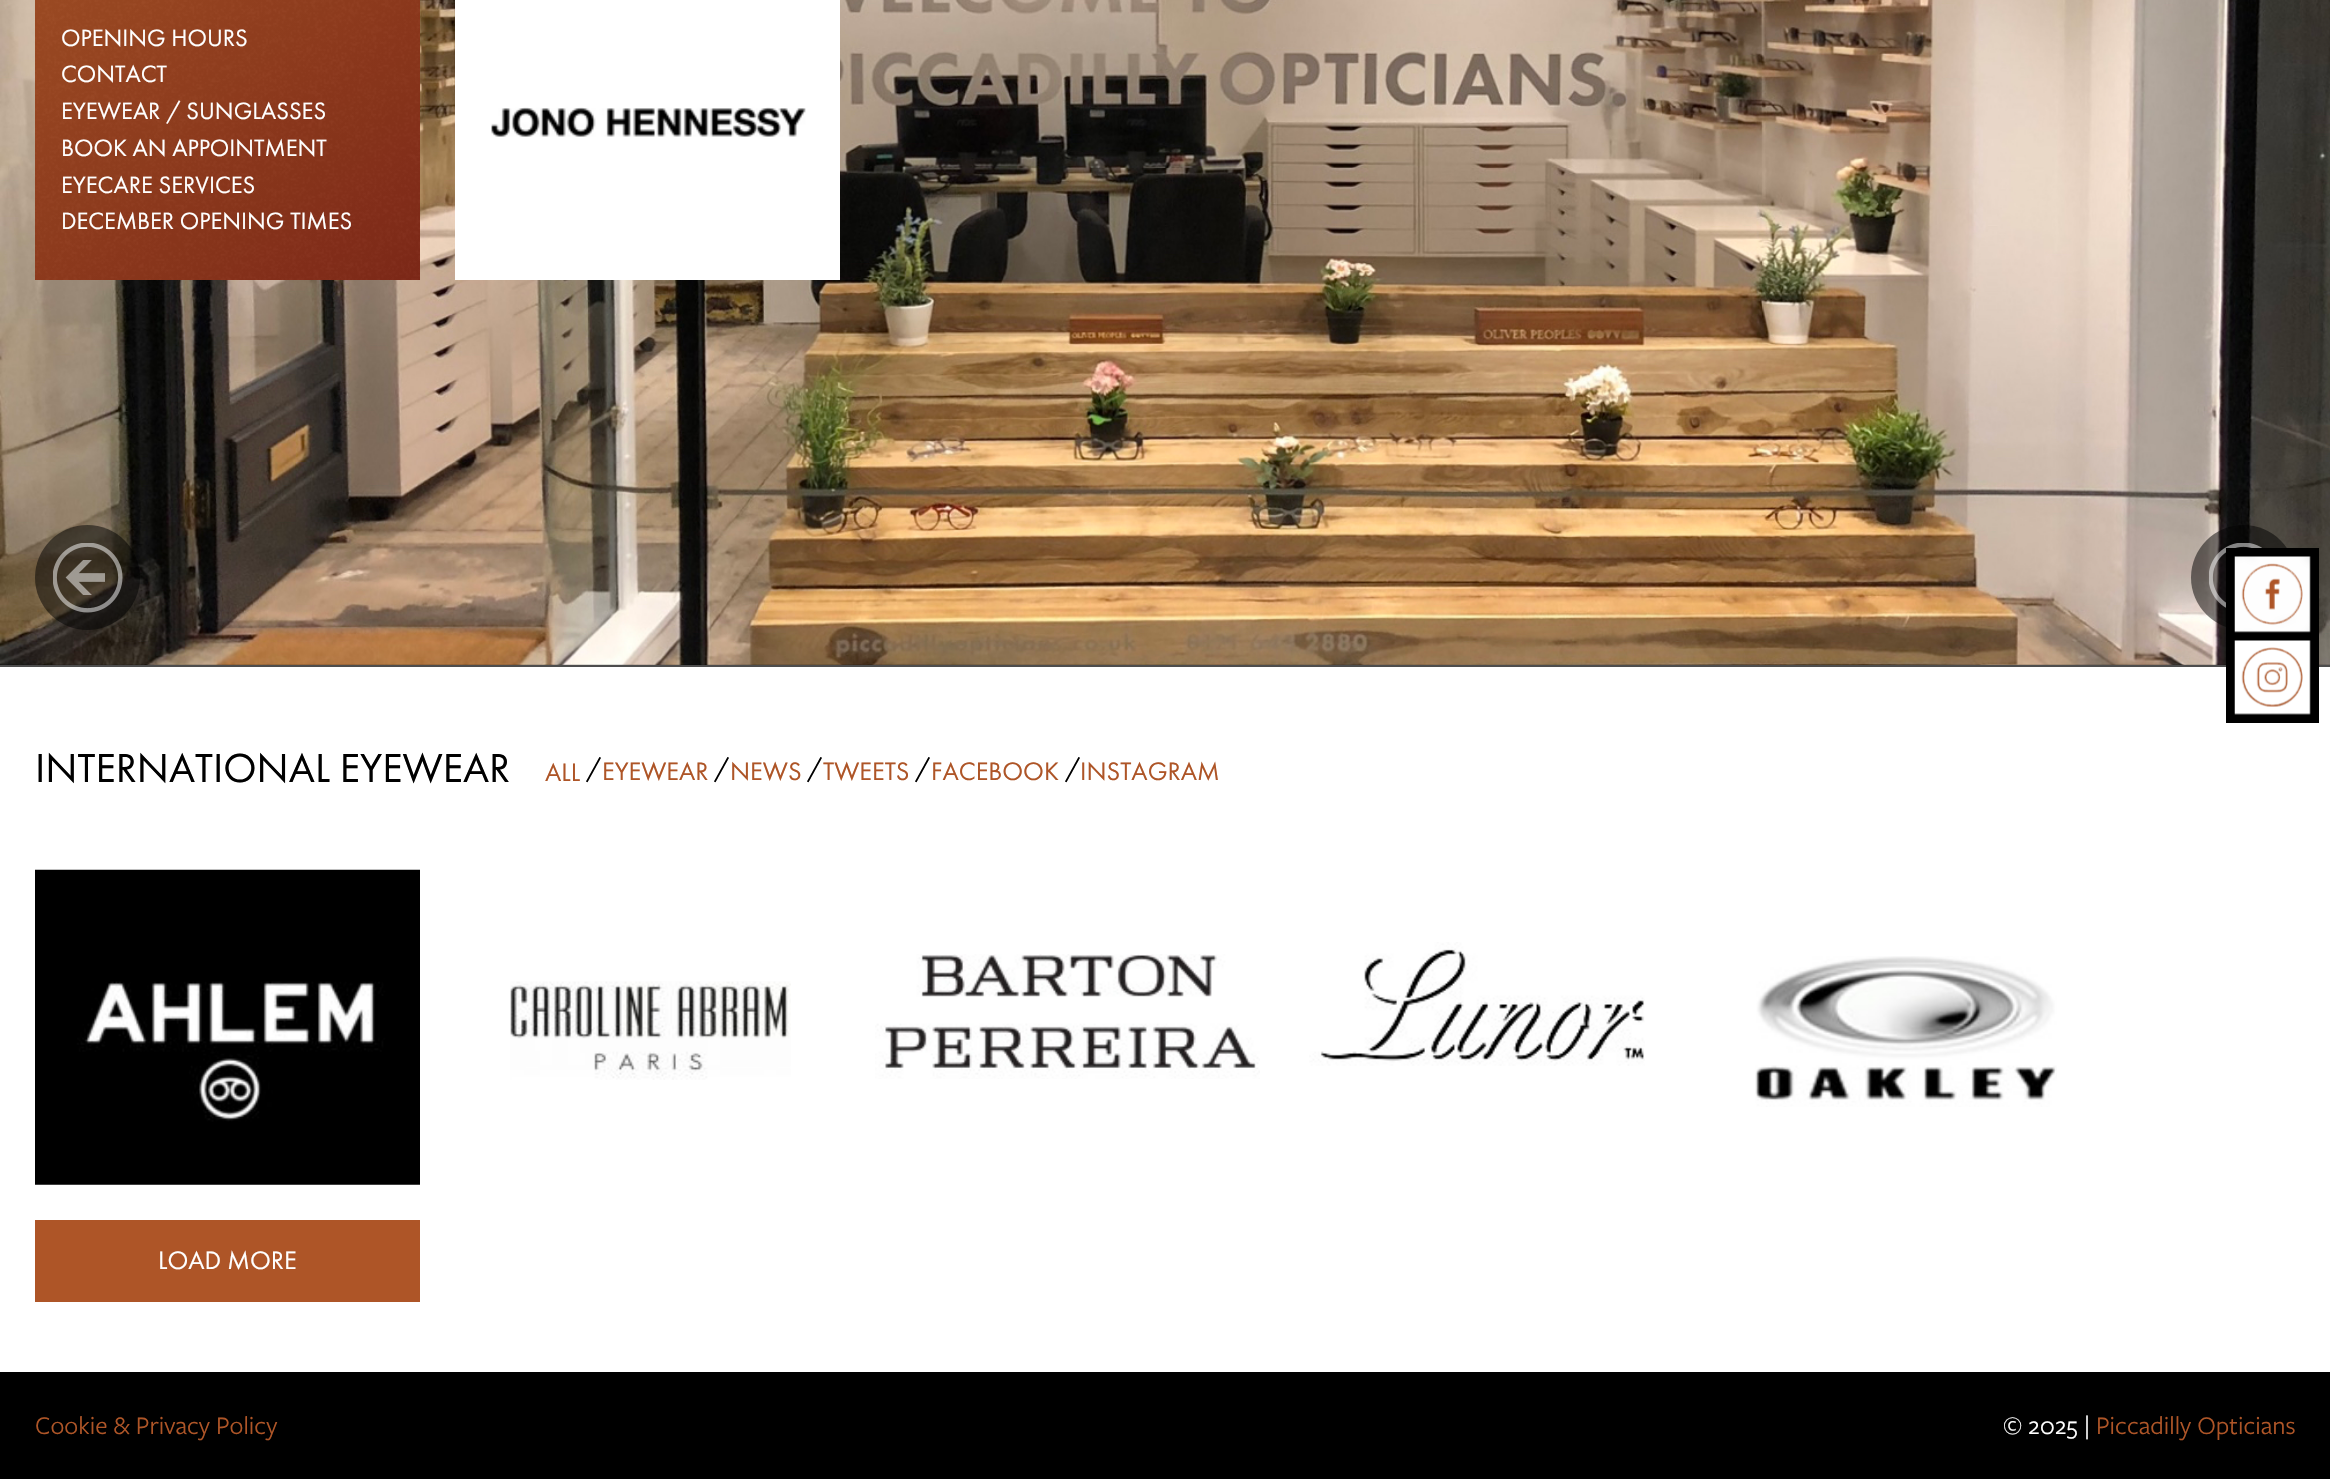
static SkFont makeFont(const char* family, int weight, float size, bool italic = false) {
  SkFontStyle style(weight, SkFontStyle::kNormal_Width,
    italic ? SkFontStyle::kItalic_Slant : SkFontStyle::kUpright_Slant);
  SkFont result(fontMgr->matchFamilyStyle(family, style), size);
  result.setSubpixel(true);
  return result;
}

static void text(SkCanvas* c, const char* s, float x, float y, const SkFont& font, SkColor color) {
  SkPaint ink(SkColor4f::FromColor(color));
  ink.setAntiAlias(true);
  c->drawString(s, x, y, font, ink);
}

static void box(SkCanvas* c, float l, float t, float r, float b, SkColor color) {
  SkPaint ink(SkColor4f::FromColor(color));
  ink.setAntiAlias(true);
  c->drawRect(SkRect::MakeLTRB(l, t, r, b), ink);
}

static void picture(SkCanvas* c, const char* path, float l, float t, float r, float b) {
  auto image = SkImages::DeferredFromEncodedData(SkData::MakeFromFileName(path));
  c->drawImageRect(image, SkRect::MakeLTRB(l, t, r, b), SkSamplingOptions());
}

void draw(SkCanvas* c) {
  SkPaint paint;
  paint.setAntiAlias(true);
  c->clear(0xff000000);
  box(c, 0, 665, 2330, 667, 0xff4d4d4d);
  picture(c, "img_01.png", 0, 0, 2330, 665);
  box(c, 455, 0, 840, 280, 0xffffffff);
  picture(c, "img_02.png", 491, 107, 806, 137);
  paint.setColor(0x80000000);
  c->drawCircle(87.5f, 577.5f, 52.5f, paint);
  picture(c, "img_03.png", 53, 543, 123, 613);
  c->drawCircle(2243.5f, 577.5f, 52.5f, paint);
  picture(c, "img_04.png", 2209, 543, 2262, 608);
  picture(c, "img_05.png", 35, 0, 420, 280);
  SkFont face1 = makeFont("Futura PT", 400, 24.5f);
  text(c, "OPENING HOURS", 61, 46, face1, 0xffffffff);
  text(c, "CONTACT", 61, 82, face1, 0xffffffff);
  text(c, "EYEWEAR / SUNGLASSES", 61, 119, face1, 0xffffffff);
  text(c, "BOOK AN APPOINTMENT", 61, 156, face1, 0xffffffff);
  text(c, "EYECARE SERVICES", 61, 193, face1, 0xffffffff);
  text(c, "DECEMBER OPENING TIMES", 61, 229, face1, 0xffffffff);
  box(c, 0, 667, 2330, 1372, 0xffffffff);
  box(c, 2226, 548, 2319, 723, 0xff000000);
  picture(c, "img_06.png", 2234, 556, 2311, 633);
  picture(c, "img_07.png", 2234, 640, 2311, 715);
  SkFont face2 = makeFont("Futura PT", 400, 42);
  text(c, "INTERNATIONAL EYEWEAR", 35, 782, face2, 0xff000000);
  SkFont face3 = makeFont("Futura PT", 400, 26.25f);
  text(c, "ALL", 545, 781, face3, 0xffae5527);
  text(c, "/", 586, 777, face3, 0xff000000);
  text(c, "EYEWEAR", 602, 780, face3, 0xffae5527);
  text(c, "/", 714, 777, face3, 0xff000000);
  text(c, "NEWS", 730, 780, face3, 0xffae5527);
  text(c, "/", 807, 777, face3, 0xff000000);
  text(c, "TWEETS", 823, 780, face3, 0xffae5527);
  text(c, "/", 915, 777, face3, 0xff000000);
  text(c, "FACEBOOK", 931, 780, face3, 0xffae5527);
  text(c, "/", 1065, 777, face3, 0xff000000);
  text(c, "INSTAGRAM", 1080, 780, face3, 0xffae5527);
  picture(c, "img_08.png", 35, 869, 420, 1185);
  picture(c, "img_09.png", 510, 981, 791, 1080);
  picture(c, "img_10.png", 875, 954, 1260, 1079);
  picture(c, "img_11.png", 1309, 942, 1645, 1066);
  picture(c, "img_12.png", 1755, 956, 2057, 1107);
  box(c, 35, 1220, 420, 1302, 0xffae5527);
  text(c, "LOAD MORE", 158, 1269, face3, 0xffffffff);
  SkFont face4 = makeFont("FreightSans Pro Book", 400, 26.25f);
  text(c, "Cookie & Privacy Policy", 35, 1434, face4, 0xffae5527);
  text(c, "© 2025 |", 2003, 1434, face4, 0xffffffff);
  text(c, "Piccadilly Opticians", 2096, 1434, face4, 0xffae5527);
}
